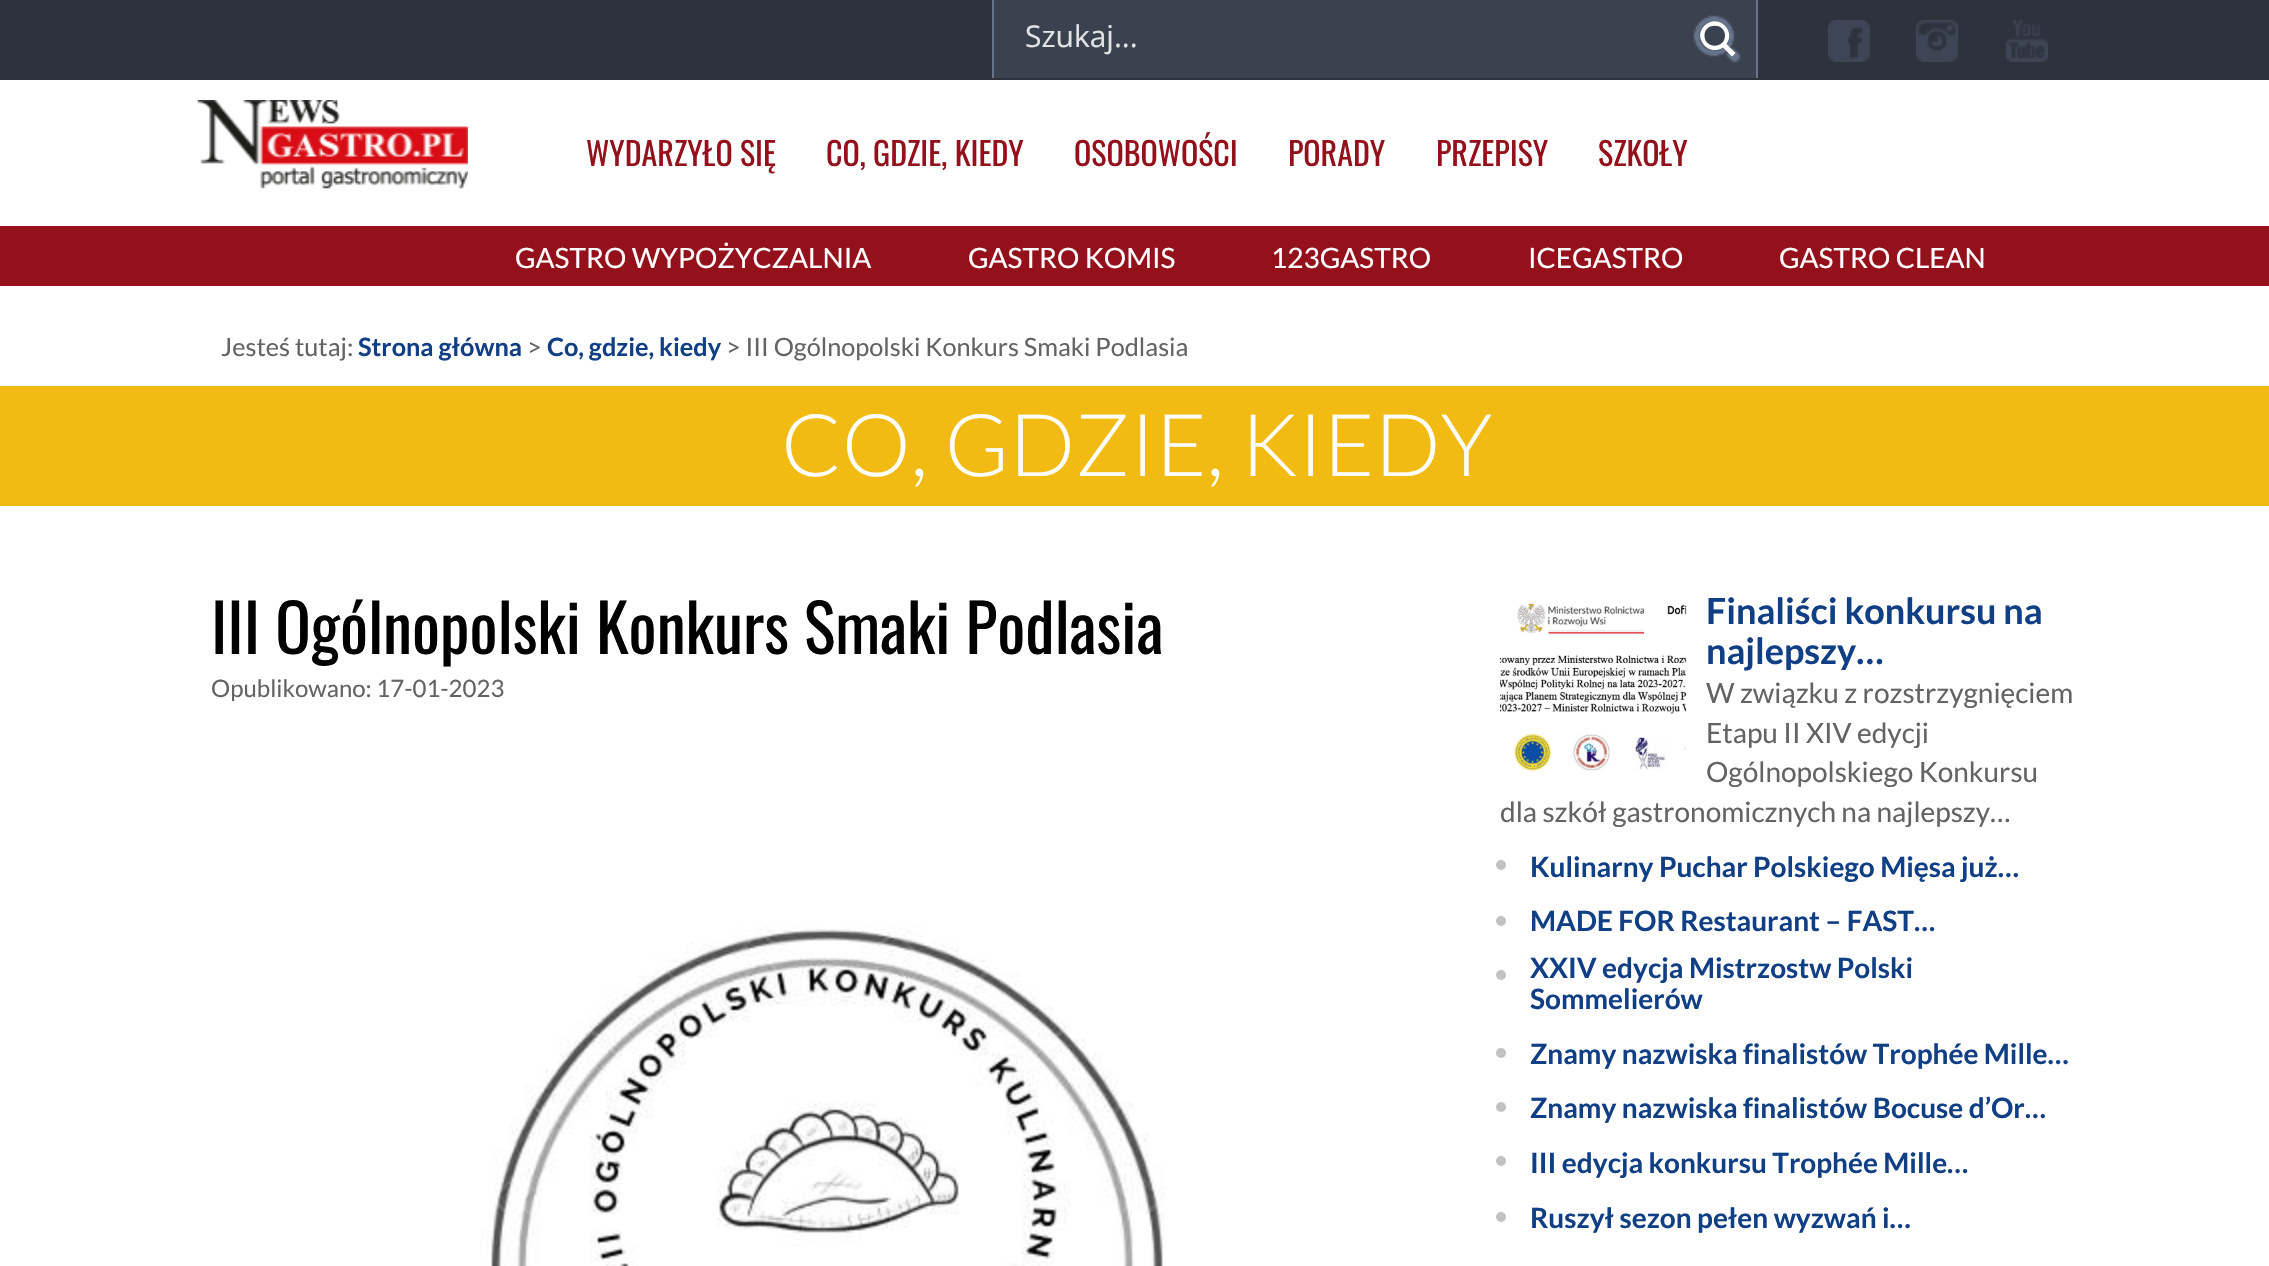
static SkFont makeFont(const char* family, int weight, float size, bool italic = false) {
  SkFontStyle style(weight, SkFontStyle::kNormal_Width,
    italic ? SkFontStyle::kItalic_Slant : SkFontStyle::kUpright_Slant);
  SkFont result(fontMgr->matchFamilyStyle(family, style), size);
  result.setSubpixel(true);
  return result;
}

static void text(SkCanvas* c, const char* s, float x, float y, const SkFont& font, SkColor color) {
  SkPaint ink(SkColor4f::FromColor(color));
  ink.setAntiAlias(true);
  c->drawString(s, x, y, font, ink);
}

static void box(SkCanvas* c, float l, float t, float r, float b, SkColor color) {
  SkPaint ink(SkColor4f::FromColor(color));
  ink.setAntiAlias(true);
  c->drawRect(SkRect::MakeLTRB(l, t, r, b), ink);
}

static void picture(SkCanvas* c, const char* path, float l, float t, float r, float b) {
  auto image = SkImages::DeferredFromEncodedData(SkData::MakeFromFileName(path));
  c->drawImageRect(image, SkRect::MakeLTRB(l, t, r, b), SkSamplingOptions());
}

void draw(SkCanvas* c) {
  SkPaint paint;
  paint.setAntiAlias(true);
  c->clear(0xffffffff);
  box(c, 0, 0, 2269, 80, 0xff2d323d);
  box(c, 994, 0, 1756, 78, 0xff3a414f);
  box(c, 992, 0, 994, 78, 0xff66738b);
  SkFont face1 = makeFont("Open Sans", 400, 30);
  text(c, "Szukaj...", 1025, 47, face1, 0xffe1e3e5);
  picture(c, "img_01.png", 1693, 15, 1741, 63);
  box(c, 1756, 0, 1758, 78, 0xff66738b);
  paint.setColor(0xffffffff);
  c->drawPath(SkPathBuilder().moveTo(1735.5f, 53).lineTo(1726.5f, 44).cubicTo(1736.5f, 30, 1717.5f, 13, 1704.5f, 25.5f).cubicTo(1692, 38, 1709, 57, 1723, 47.5f).lineTo(1732, 56.5f).close().moveTo(1704.5f, 35.5f).cubicTo(1704.5f, 22.5f, 1725, 22.5f, 1725, 35.5f).cubicTo(1725, 49, 1704.5f, 49, 1704.5f, 35.5f).close().detach(), paint);
  picture(c, "img_02.png", 1828, 20, 1870, 62);
  picture(c, "img_03.png", 1916, 20, 1958, 62);
  picture(c, "img_04.png", 2006, 20, 2048, 62);
  picture(c, "img_05.png", 197, 100, 468, 189);
  SkFont face2 = makeFont("Oswald", 400, 32);
  text(c, "WYDARZYŁO SIĘ", 586, 166, face2, 0xff94111c);
  text(c, "CO, GDZIE, KIEDY", 826, 166, face2, 0xff94111c);
  text(c, "OSOBOWOŚCI", 1074, 166, face2, 0xff94111c);
  text(c, "PORADY", 1288, 166, face2, 0xff94111c);
  text(c, "PRZEPISY", 1436, 166, face2, 0xff94111c);
  text(c, "SZKOŁY", 1598, 166, face2, 0xff94111c);
  box(c, 0, 226, 2269, 286, 0xff94111c);
  SkFont face3 = makeFont("Lato", 400, 28);
  text(c, "GASTRO WYPOŻYCZALNIA", 515, 268, face3, 0xffffffff);
  text(c, "GASTRO KOMIS", 968, 268, face3, 0xffffffff);
  text(c, "123GASTRO", 1271, 268, face3, 0xffffffff);
  text(c, "ICEGASTRO", 1528, 268, face3, 0xffffffff);
  text(c, "GASTRO CLEAN", 1779, 268, face3, 0xffffffff);
  SkFont face4 = makeFont("Lato", 400, 25.25f);
  text(c, "Jesteś tutaj:", 221, 356, face4, 0xff636363);
  SkFont face5 = makeFont("Lato", 700, 25.25f);
  text(c, "Strona główna", 358, 356, face5, 0xff113f85);
  text(c, ">", 527, 356, face4, 0xff636363);
  text(c, "Co, gdzie, kiedy", 547, 356, face5, 0xff113f85);
  text(c, "> III Ogólnopolski Konkurs Smaki Podlasia", 726, 356, face4, 0xff636363);
  box(c, 0, 386, 2269, 506, 0xfff2bb13);
  SkFont face6 = makeFont("Lato", 300, 86.5f);
  text(c, "CO, GDZIE, KIEDY", 781, 476, face6, 0xffffffff);
  SkFont face7 = makeFont("Oswald", 400, 66);
  text(c, "III Ogólnopolski Konkurs Smaki Podlasia", 211, 654, face7, 0xff000000);
  SkFont face8 = makeFont("Lato", 400, 24);
  text(c, "Opublikowano: 17-01-2023", 211, 697, face8, 0xff636363);
  picture(c, "img_06.png", 480, 926, 1166, 1266);
  picture(c, "img_07.png", 1500, 603, 1687, 772);
  SkFont face9 = makeFont("Lato", 700, 36);
  text(c, "Finaliści konkursu na", 1706, 624, face9, 0xff113f85);
  text(c, "najlepszy…", 1706, 664, face9, 0xff113f85);
  text(c, "W związku z rozstrzygnięciem", 1706, 703, face3, 0xff636363);
  text(c, "Etapu II XIV edycji", 1706, 743, face3, 0xff636363);
  text(c, "Ogólnopolskiego Konkursu", 1706, 782, face3, 0xff636363);
  text(c, "dla szkół gastronomicznych na najlepszy…", 1500, 822, face3, 0xff636363);
  paint.setColor(0xffc2c2c2);
  c->drawCircle(1501, 865, 5, paint);
  SkFont face10 = makeFont("Lato", 700, 28);
  text(c, "Kulinarny Puchar Polskiego Mięsa już…", 1530, 877, face10, 0xff113f85);
  c->drawCircle(1501, 921, 5, paint);
  text(c, "MADE FOR Restaurant – FAST…", 1530, 931, face10, 0xff113f85);
  c->drawCircle(1501, 975, 5, paint);
  text(c, "XXIV edycja Mistrzostw Polski", 1530, 978, face10, 0xff113f85);
  text(c, "Sommelierów", 1530, 1009, face10, 0xff113f85);
  c->drawCircle(1501, 1053, 5, paint);
  text(c, "Znamy nazwiska finalistów Trophée Mille…", 1530, 1064, face10, 0xff113f85);
  c->drawCircle(1501, 1107, 5, paint);
  text(c, "Znamy nazwiska finalistów Bocuse d’Or…", 1530, 1118, face10, 0xff113f85);
  c->drawCircle(1501, 1161, 5, paint);
  text(c, "III edycja konkursu Trophée Mille…", 1530, 1173, face10, 0xff113f85);
  c->drawCircle(1501, 1217, 5, paint);
  text(c, "Ruszył sezon pełen wyzwań i…", 1530, 1228, face10, 0xff113f85);
}
